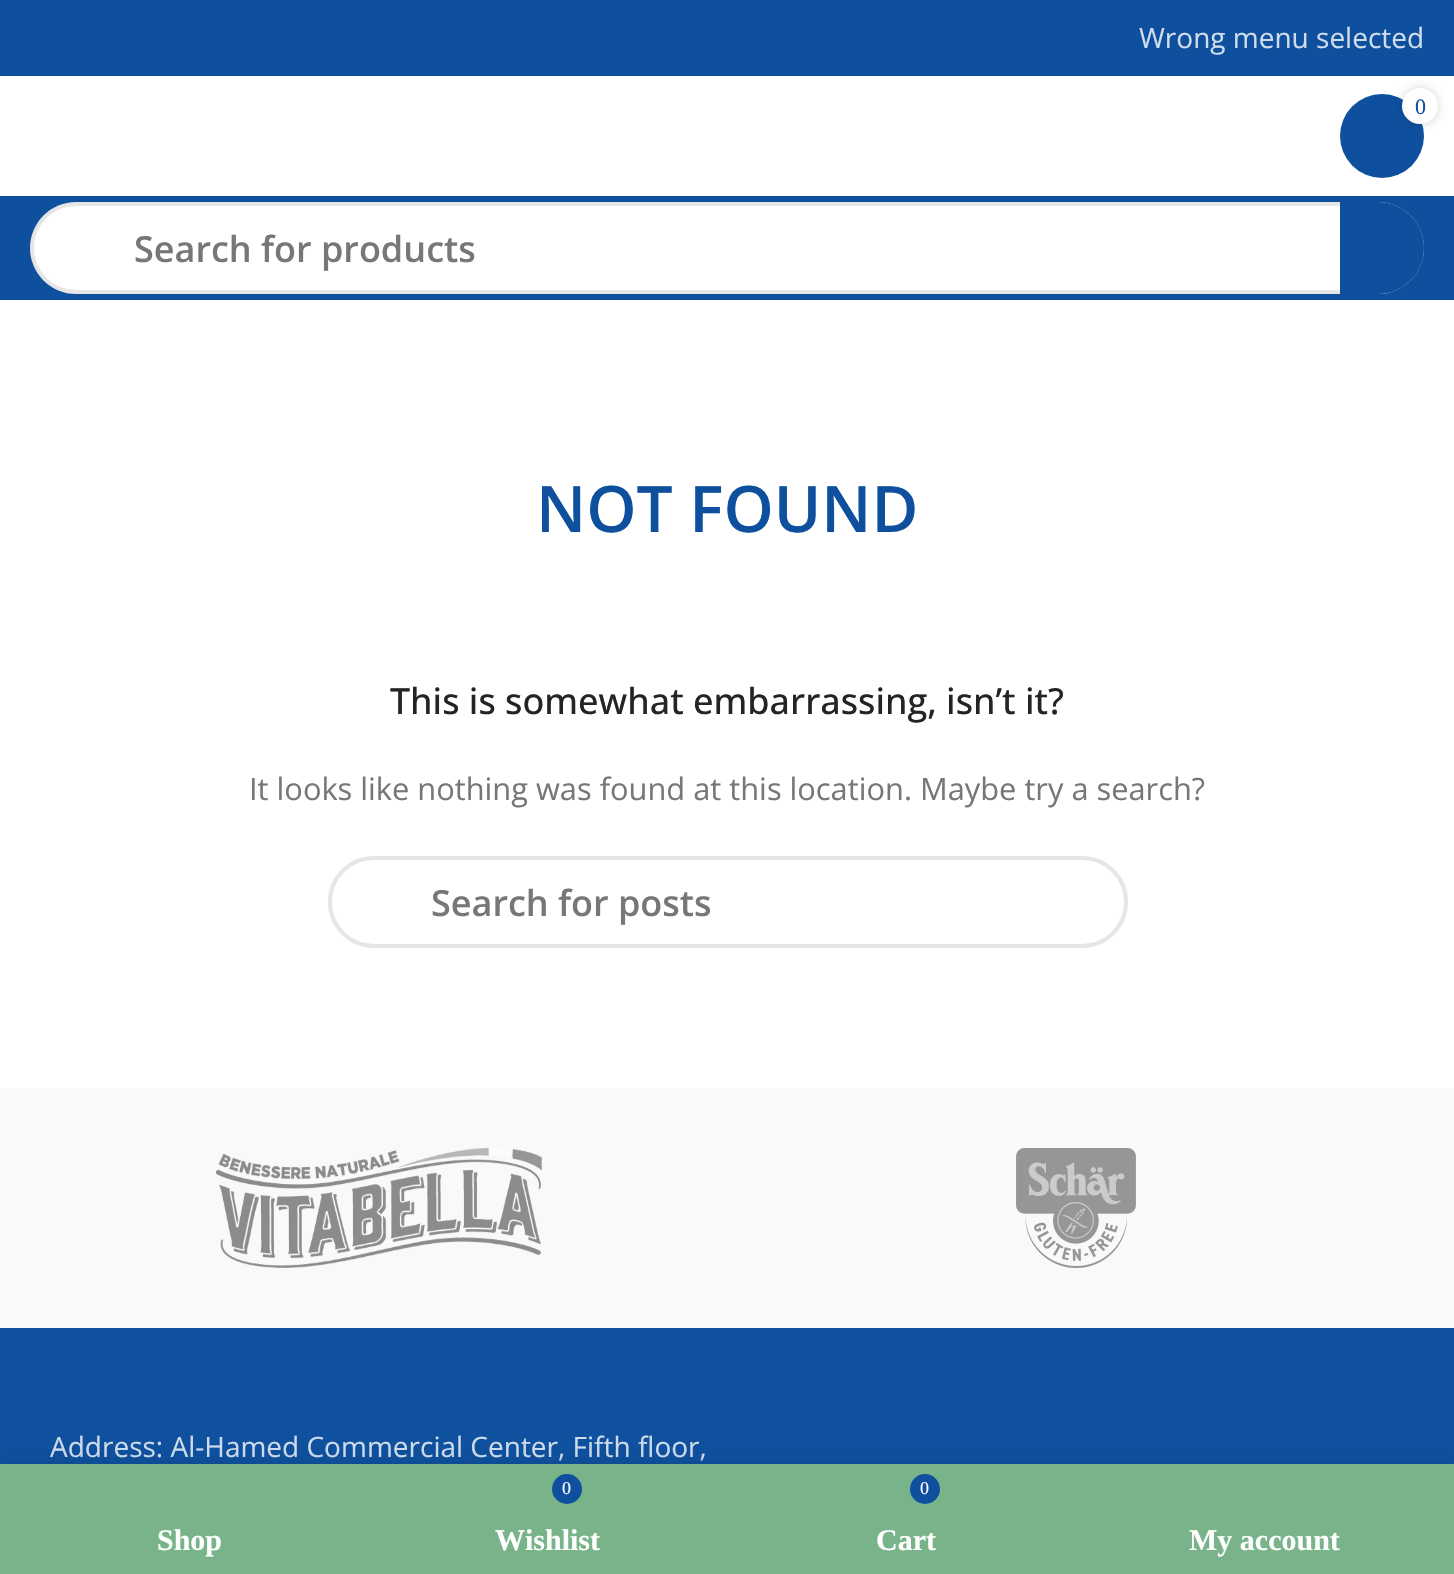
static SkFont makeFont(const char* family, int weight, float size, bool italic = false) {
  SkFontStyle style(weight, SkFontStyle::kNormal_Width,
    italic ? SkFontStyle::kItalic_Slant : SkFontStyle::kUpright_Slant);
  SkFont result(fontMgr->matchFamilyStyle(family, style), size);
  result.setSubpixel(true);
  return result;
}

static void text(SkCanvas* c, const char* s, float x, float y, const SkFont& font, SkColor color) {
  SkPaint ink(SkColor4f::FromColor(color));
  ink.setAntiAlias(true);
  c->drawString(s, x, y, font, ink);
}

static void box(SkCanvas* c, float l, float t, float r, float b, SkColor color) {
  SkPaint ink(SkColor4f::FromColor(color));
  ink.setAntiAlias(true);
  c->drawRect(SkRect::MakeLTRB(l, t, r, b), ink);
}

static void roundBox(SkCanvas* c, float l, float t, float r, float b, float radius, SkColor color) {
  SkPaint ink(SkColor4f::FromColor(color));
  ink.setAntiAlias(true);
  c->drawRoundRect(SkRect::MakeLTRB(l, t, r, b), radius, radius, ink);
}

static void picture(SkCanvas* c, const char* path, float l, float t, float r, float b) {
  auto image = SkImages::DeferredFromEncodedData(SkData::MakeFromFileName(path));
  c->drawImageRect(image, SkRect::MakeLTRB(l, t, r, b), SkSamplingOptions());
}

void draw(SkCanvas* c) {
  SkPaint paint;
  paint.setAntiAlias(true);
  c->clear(0xffffffff);
  box(c, 0, 0, 1454, 76, 0xff0e509e);
  SkFont face1 = makeFont("Open Sans", 400, 28);
  text(c, "Wrong menu selected", 1139, 48, face1, 0xffcfdcec);
  paint.setColor(0xff0e509e);
  c->drawCircle(1382, 136, 42, paint);
  paint.setColor(0x2b000000);
  paint.setMaskFilter(SkMaskFilter::MakeBlur(kNormal_SkBlurStyle, 4));
  c->drawRoundRect(SkRect::MakeLTRB(1402, 88, 1438, 124), 18, 18, paint);
  paint.setMaskFilter(nullptr);
  paint.setColor(0xffffffff);
  c->drawCircle(1420, 106, 18, paint);
  SkFont face2 = makeFont("Liberation Serif", 400, 22);
  text(c, "0", 1415, 114, face2, 0xff0e509e);
  box(c, 0, 196, 1454, 300, 0xff0e509e);
  roundBox(c, 30, 202, 1424, 294, 46, 0xffffffff);
  paint.setStyle(SkPaint::kStroke_Style);
  paint.setStrokeWidth(4);
  paint.setColor(0x1a000000);
  c->drawRoundRect(SkRect::MakeLTRB(32, 204, 1422, 292), 44, 44, paint);
  SkFont face3 = makeFont("Open Sans", 600, 36);
  text(c, "Search for products", 134, 262, face3, 0xff777777);
  paint.setStyle(SkPaint::kFill_Style);
  paint.setColor(0xff0e509e);
  c->drawPath(SkPathBuilder().moveTo(1340, 202).lineTo(1378, 202).cubicTo(1403.5f, 202, 1424, 222.5f, 1424, 248).cubicTo(1424, 273.5f, 1403.5f, 294, 1378, 294).lineTo(1340, 294).close().detach(), paint);
  SkFont face4 = makeFont("Open Sans", 600, 64);
  text(c, "NOT FOUND", 536, 532, face4, 0xff0e509e);
  SkFont face5 = makeFont("Open Sans", 500, 36);
  text(c, "This is somewhat embarrassing, isn’t it?", 390, 714, face5, 0xff242424);
  SkFont face6 = makeFont("Open Sans", 400, 30.8f);
  text(c, "It looks like nothing was found at this location. Maybe try a search?", 249, 800, face6, 0xff777777);
  paint.setStyle(SkPaint::kStroke_Style);
  paint.setColor(0xffe6e6e6);
  c->drawRoundRect(SkRect::MakeLTRB(330, 858, 1126, 946), 44, 44, paint);
  text(c, "Search for posts", 431, 916, face3, 0xff777777);
  box(c, 0, 1088, 1454, 1328, 0xfff9f9f9);
  picture(c, "img_01.png", 216, 1148, 542, 1268);
  picture(c, "img_02.png", 1016, 1148, 1136, 1268);
  box(c, 0, 1328, 1454, 1464, 0xff0f519f);
  text(c, "Address: Al-Hamed Commercial Center, Fifth floor,", 50, 1457, face1, 0xffcfdcec);
  paint.setStyle(SkPaint::kFill_Style);
  paint.setColor(0x1f000000);
  paint.setMaskFilter(SkMaskFilter::MakeBlur(kNormal_SkBlurStyle, 9));
  c->drawRect(SkRect::MakeLTRB(0, 1464, 1454, 1574), paint);
  paint.setMaskFilter(nullptr);
  box(c, 0, 1464, 1454, 1574, 0xff79b38a);
  SkFont face7 = makeFont("Liberation Serif", 700, 30);
  text(c, "Shop", 157, 1550, face7, 0xffffffff);
  paint.setColor(0xff0e509e);
  c->drawCircle(567, 1489, 15, paint);
  SkFont face8 = makeFont("Liberation Serif", 400, 18);
  text(c, "0", 562, 1494, face8, 0xffffffff);
  text(c, "Wishlist", 495, 1550, face7, 0xffffffff);
  c->drawCircle(925, 1489, 15, paint);
  text(c, "0", 920, 1494, face8, 0xffffffff);
  text(c, "Cart", 876, 1550, face7, 0xffffffff);
  text(c, "My account", 1189, 1550, face7, 0xffffffff);
}
